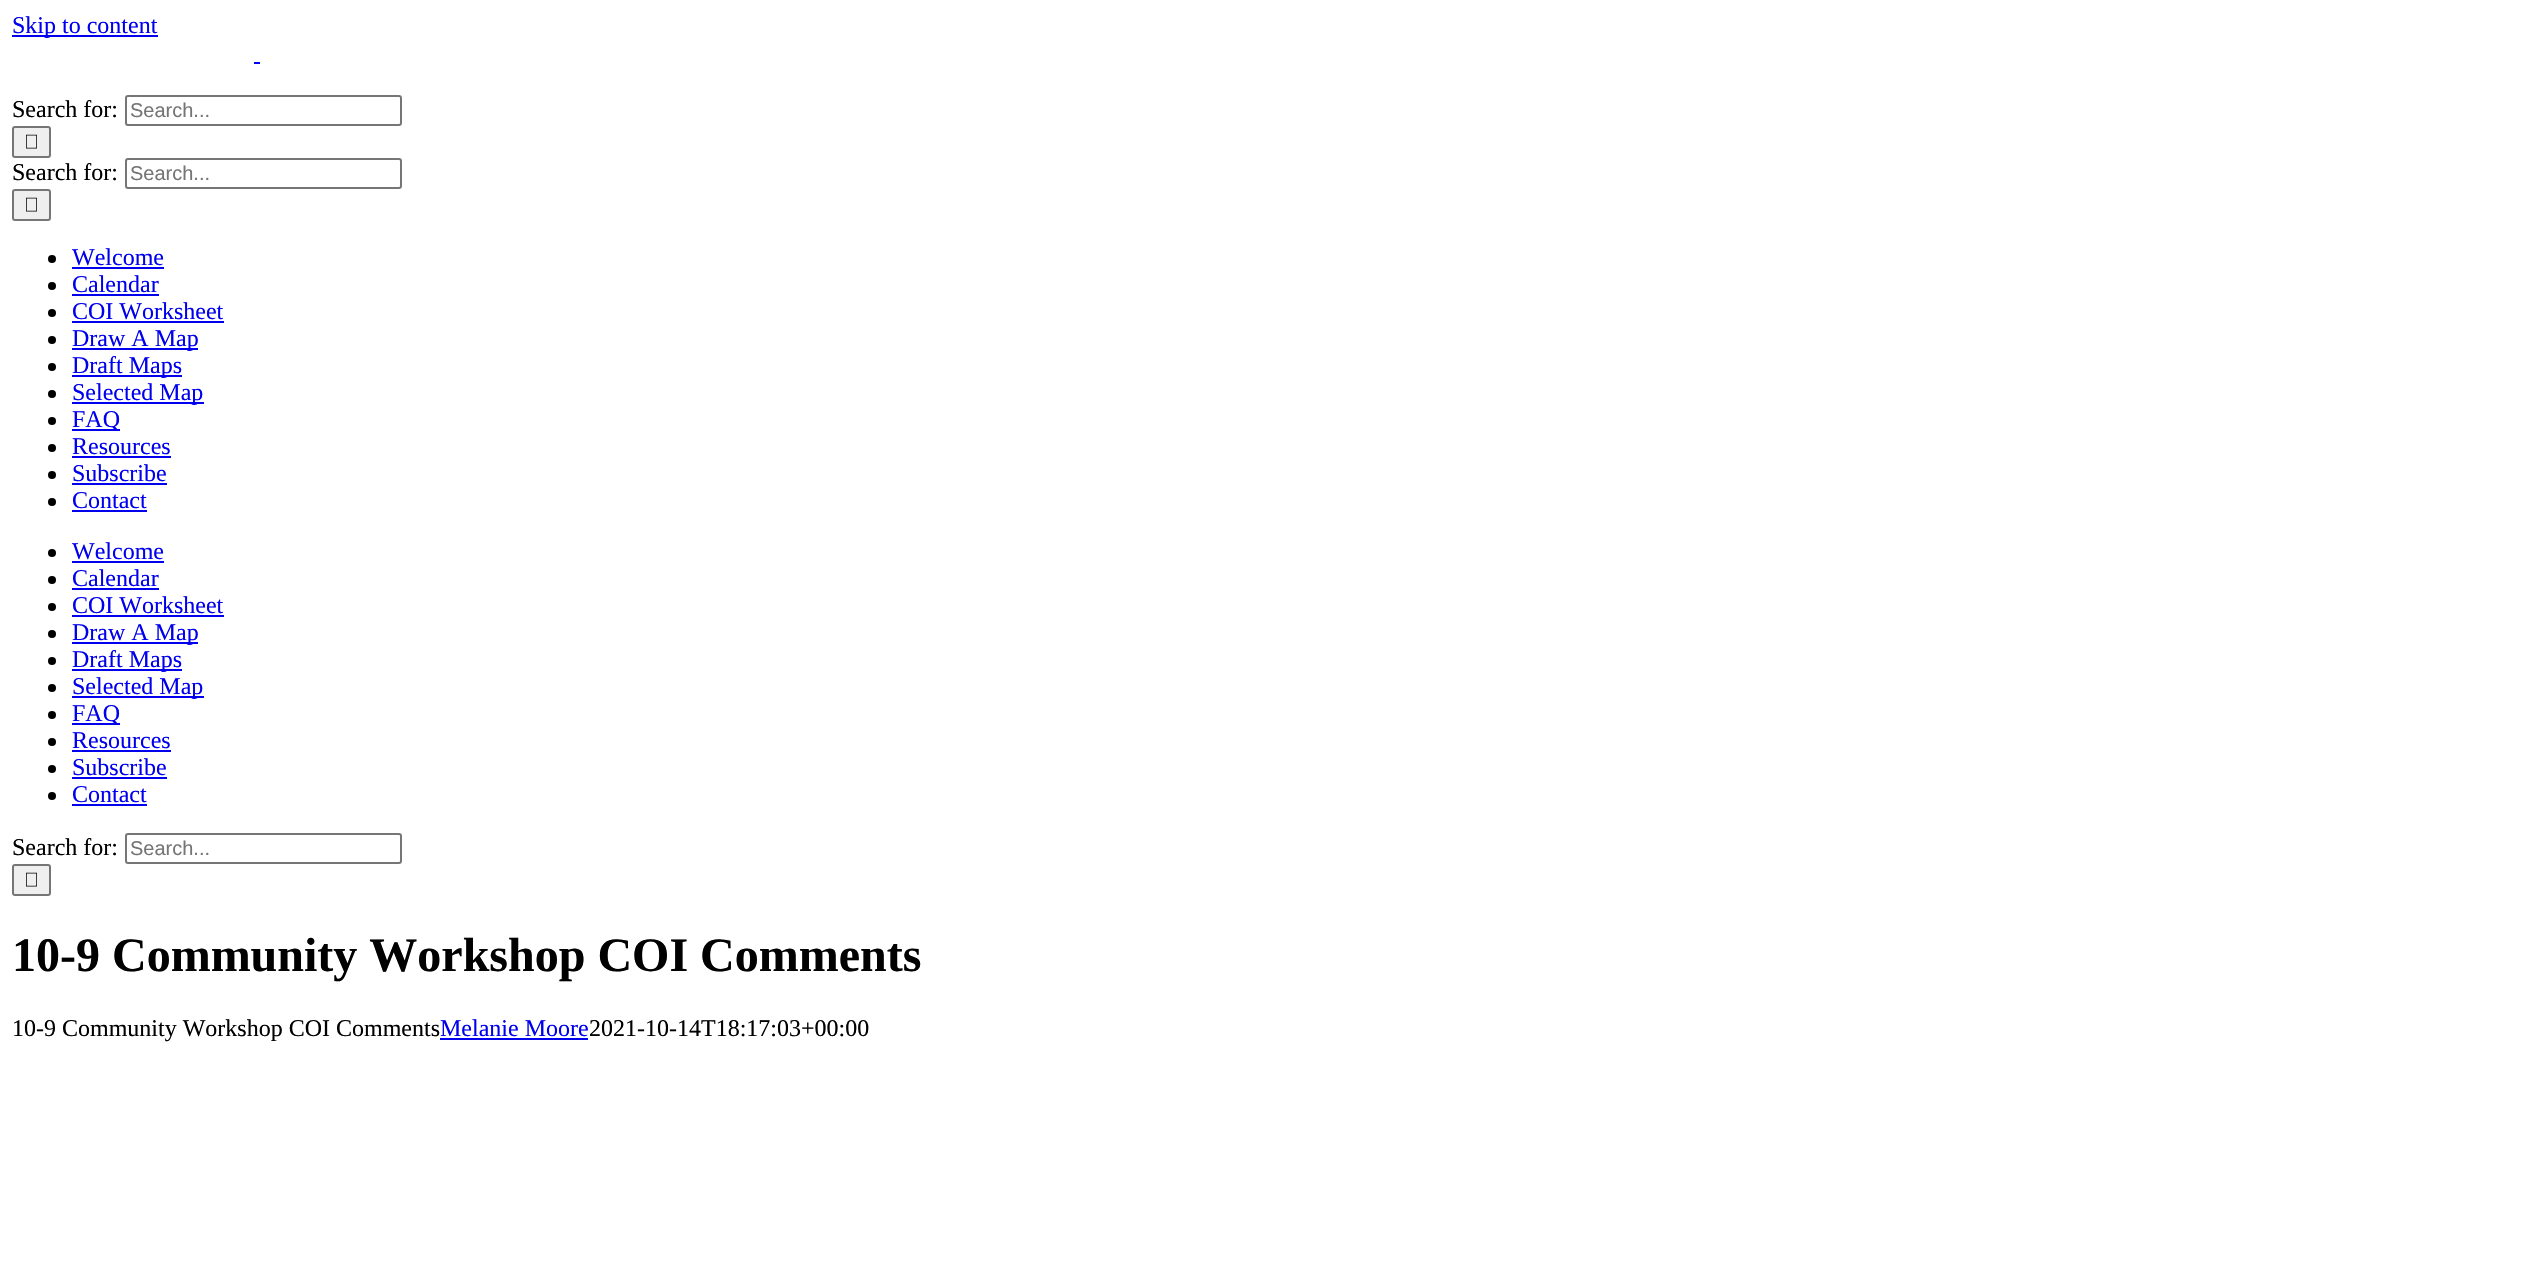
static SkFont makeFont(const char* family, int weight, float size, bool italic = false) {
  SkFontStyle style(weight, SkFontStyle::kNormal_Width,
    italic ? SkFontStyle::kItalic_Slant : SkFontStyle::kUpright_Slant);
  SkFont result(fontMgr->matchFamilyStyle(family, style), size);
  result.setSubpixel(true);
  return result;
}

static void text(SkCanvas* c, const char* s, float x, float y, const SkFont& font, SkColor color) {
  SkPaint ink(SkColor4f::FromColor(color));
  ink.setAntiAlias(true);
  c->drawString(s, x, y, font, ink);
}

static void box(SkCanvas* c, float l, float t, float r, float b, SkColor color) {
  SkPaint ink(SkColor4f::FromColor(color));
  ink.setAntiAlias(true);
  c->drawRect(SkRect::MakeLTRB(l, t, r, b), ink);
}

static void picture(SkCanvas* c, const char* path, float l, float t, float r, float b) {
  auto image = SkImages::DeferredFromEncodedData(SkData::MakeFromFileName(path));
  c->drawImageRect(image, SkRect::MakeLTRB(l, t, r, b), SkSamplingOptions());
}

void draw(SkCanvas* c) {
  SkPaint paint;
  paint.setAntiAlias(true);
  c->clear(0xffffffff);
  box(c, 12, 35, 158, 37, 0xff0000ee);
  SkFont face1 = makeFont("Liberation Serif", 400, 24);
  text(c, "Skip to content", 12, 33, face1, 0xff0000ee);
  box(c, 254, 62, 260, 64, 0xff0000ee);
  text(c, "Search for:", 12, 117, face1, 0xff000000);
  paint.setStyle(SkPaint::kStroke_Style);
  paint.setStrokeWidth(2);
  paint.setColor(0xff767676);
  c->drawRoundRect(SkRect::MakeLTRB(126, 96, 401, 125), 2, 2, paint);
  SkFont face2 = makeFont("Liberation Sans", 400, 20);
  text(c, "Search...", 130, 117, face2, 0xff757575);
  paint.setStyle(SkPaint::kFill_Style);
  paint.setColor(0xffefefef);
  c->drawRoundRect(SkRect::MakeLTRB(13, 127, 50, 157), 2, 2, paint);
  paint.setStyle(SkPaint::kStroke_Style);
  paint.setColor(0xff767676);
  c->drawRoundRect(SkRect::MakeLTRB(13, 127, 50, 157), 2, 2, paint);
  picture(c, "img_01.png", 26, 134, 37, 149);
  text(c, "Search for:", 12, 180, face1, 0xff000000);
  c->drawRoundRect(SkRect::MakeLTRB(126, 159, 401, 188), 2, 2, paint);
  text(c, "Search...", 130, 180, face2, 0xff757575);
  paint.setStyle(SkPaint::kFill_Style);
  paint.setColor(0xffefefef);
  c->drawRoundRect(SkRect::MakeLTRB(13, 190, 50, 220), 2, 2, paint);
  paint.setStyle(SkPaint::kStroke_Style);
  paint.setColor(0xff767676);
  c->drawRoundRect(SkRect::MakeLTRB(13, 190, 50, 220), 2, 2, paint);
  picture(c, "img_01.png", 26, 197, 37, 212);
  paint.setStyle(SkPaint::kFill_Style);
  paint.setColor(0xff000000);
  c->drawCircle(52, 259, 4, paint);
  text(c, "Welcome", 72, 265, face1, 0xff0000ee);
  box(c, 72, 267, 164, 269, 0xff0000ee);
  c->drawCircle(52, 286, 4, paint);
  text(c, "Calendar", 72, 292, face1, 0xff0000ee);
  box(c, 72, 294, 159, 296, 0xff0000ee);
  c->drawCircle(52, 313, 4, paint);
  text(c, "COI Worksheet", 72, 319, face1, 0xff0000ee);
  box(c, 72, 321, 224, 323, 0xff0000ee);
  c->drawCircle(52, 340, 4, paint);
  box(c, 72, 348, 198, 350, 0xff0000ee);
  text(c, "Draw A Map", 72, 346, face1, 0xff0000ee);
  c->drawCircle(52, 367, 4, paint);
  box(c, 72, 375, 182, 377, 0xff0000ee);
  text(c, "Draft Maps", 72, 373, face1, 0xff0000ee);
  c->drawCircle(52, 394, 4, paint);
  box(c, 72, 402, 204, 404, 0xff0000ee);
  text(c, "Selected Map", 72, 400, face1, 0xff0000ee);
  c->drawCircle(52, 421, 4, paint);
  box(c, 72, 429, 120, 431, 0xff0000ee);
  text(c, "FAQ", 72, 427, face1, 0xff0000ee);
  c->drawCircle(52, 448, 4, paint);
  text(c, "Resources", 72, 454, face1, 0xff0000ee);
  box(c, 72, 456, 171, 458, 0xff0000ee);
  c->drawCircle(52, 475, 4, paint);
  text(c, "Subscribe", 72, 481, face1, 0xff0000ee);
  box(c, 72, 483, 167, 485, 0xff0000ee);
  c->drawCircle(52, 502, 4, paint);
  text(c, "Contact", 72, 508, face1, 0xff0000ee);
  box(c, 72, 510, 147, 512, 0xff0000ee);
  c->drawCircle(52, 553, 4, paint);
  text(c, "Welcome", 72, 559, face1, 0xff0000ee);
  box(c, 72, 561, 164, 563, 0xff0000ee);
  c->drawCircle(52, 580, 4, paint);
  text(c, "Calendar", 72, 586, face1, 0xff0000ee);
  box(c, 72, 588, 159, 590, 0xff0000ee);
  c->drawCircle(52, 607, 4, paint);
  text(c, "COI Worksheet", 72, 613, face1, 0xff0000ee);
  box(c, 72, 615, 224, 617, 0xff0000ee);
  c->drawCircle(52, 634, 4, paint);
  box(c, 72, 642, 198, 644, 0xff0000ee);
  text(c, "Draw A Map", 72, 640, face1, 0xff0000ee);
  c->drawCircle(52, 661, 4, paint);
  box(c, 72, 669, 182, 671, 0xff0000ee);
  text(c, "Draft Maps", 72, 667, face1, 0xff0000ee);
  c->drawCircle(52, 688, 4, paint);
  box(c, 72, 696, 204, 698, 0xff0000ee);
  text(c, "Selected Map", 72, 694, face1, 0xff0000ee);
  c->drawCircle(52, 715, 4, paint);
  box(c, 72, 723, 120, 725, 0xff0000ee);
  text(c, "FAQ", 72, 721, face1, 0xff0000ee);
  c->drawCircle(52, 742, 4, paint);
  text(c, "Resources", 72, 748, face1, 0xff0000ee);
  box(c, 72, 750, 171, 752, 0xff0000ee);
  c->drawCircle(52, 769, 4, paint);
  text(c, "Subscribe", 72, 775, face1, 0xff0000ee);
  box(c, 72, 777, 167, 779, 0xff0000ee);
  c->drawCircle(52, 796, 4, paint);
  text(c, "Contact", 72, 802, face1, 0xff0000ee);
  box(c, 72, 804, 147, 806, 0xff0000ee);
  text(c, "Search for:", 12, 855, face1, 0xff000000);
  paint.setStyle(SkPaint::kStroke_Style);
  paint.setColor(0xff767676);
  c->drawRoundRect(SkRect::MakeLTRB(126, 834, 401, 863), 2, 2, paint);
  text(c, "Search...", 130, 855, face2, 0xff757575);
  paint.setStyle(SkPaint::kFill_Style);
  paint.setColor(0xffefefef);
  c->drawRoundRect(SkRect::MakeLTRB(13, 865, 50, 895), 2, 2, paint);
  paint.setStyle(SkPaint::kStroke_Style);
  paint.setColor(0xff767676);
  c->drawRoundRect(SkRect::MakeLTRB(13, 865, 50, 895), 2, 2, paint);
  picture(c, "img_01.png", 26, 872, 37, 887);
  SkFont face3 = makeFont("Liberation Serif", 700, 48);
  text(c, "10-9 Community Workshop COI Comments", 12, 971, face3, 0xff000000);
  text(c, "10-9 Community Workshop COI Comments", 12, 1036, face1, 0xff000000);
  text(c, "Melanie Moore", 440, 1036, face1, 0xff0000ee);
  box(c, 440, 1038, 588, 1040, 0xff0000ee);
  text(c, "2021-10-14T18:17:03+00:00", 589, 1036, face1, 0xff000000);
}
